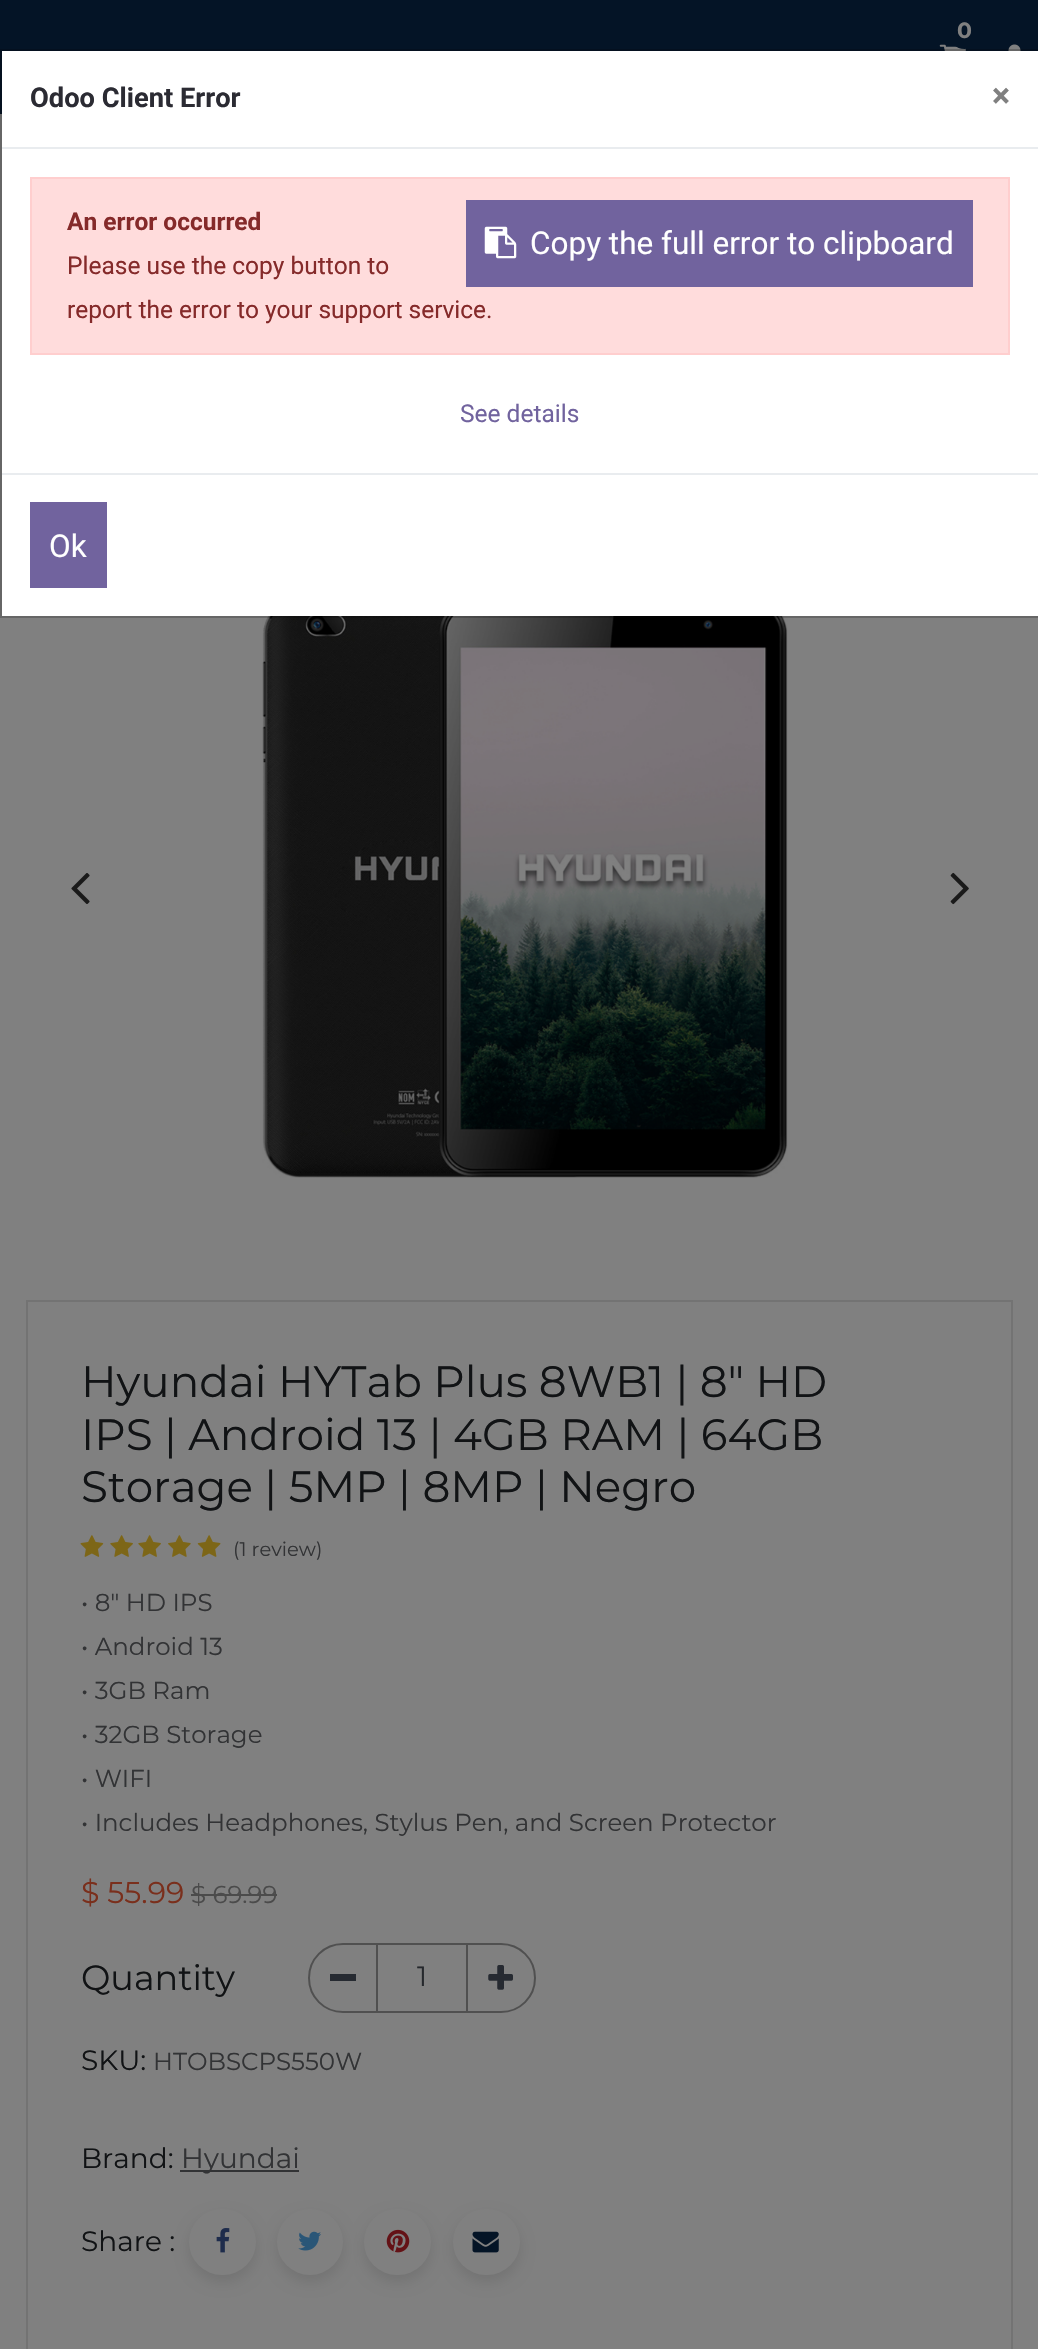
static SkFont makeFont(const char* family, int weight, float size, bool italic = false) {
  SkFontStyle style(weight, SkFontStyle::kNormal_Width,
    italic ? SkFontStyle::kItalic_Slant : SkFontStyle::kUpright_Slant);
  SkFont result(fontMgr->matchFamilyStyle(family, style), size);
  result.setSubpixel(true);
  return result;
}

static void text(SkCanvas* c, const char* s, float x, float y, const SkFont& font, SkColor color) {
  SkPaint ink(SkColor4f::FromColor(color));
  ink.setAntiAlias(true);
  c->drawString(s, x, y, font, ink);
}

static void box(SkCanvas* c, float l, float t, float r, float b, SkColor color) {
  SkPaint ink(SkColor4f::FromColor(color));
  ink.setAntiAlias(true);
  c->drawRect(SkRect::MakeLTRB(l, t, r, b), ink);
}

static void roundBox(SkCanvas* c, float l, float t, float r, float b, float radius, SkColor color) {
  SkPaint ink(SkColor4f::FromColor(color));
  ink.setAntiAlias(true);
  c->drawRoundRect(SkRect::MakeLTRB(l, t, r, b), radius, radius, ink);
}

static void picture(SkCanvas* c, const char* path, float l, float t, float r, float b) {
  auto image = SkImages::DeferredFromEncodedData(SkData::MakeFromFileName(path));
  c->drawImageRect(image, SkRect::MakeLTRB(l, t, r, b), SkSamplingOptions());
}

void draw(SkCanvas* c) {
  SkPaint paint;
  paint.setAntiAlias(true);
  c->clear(0xff808080);
  box(c, 0, 0, 1038, 114, 0xff041426);
  picture(c, "img_01.png", 939, 44, 966, 51);
  roundBox(c, 949, 16, 980, 49, 15.5f, 0xff041426);
  SkFont face1 = makeFont("Montserrat", 700, 22);
  text(c, "0", 957, 38, face1, 0xff808080);
  picture(c, "img_02.png", 1008, 44, 1021, 51);
  picture(c, "img_03.png", 262, 616, 788, 1178);
  picture(c, "img_04.png", 71, 873, 90, 904);
  picture(c, "img_05.png", 950, 872, 969, 905);
  paint.setStyle(SkPaint::kStroke_Style);
  paint.setStrokeWidth(2);
  paint.setColor(0xff737373);
  c->drawRect(SkRect::MakeLTRB(27, 1301, 1012, 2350), paint);
  SkFont face2 = makeFont("Montserrat", 400, 43.75f);
  text(c, "Hyundai HYTab Plus 8WB1 | 8\" HD", 81, 1397, face2, 0xff111315);
  text(c, "IPS | Android 13 | 4GB RAM | 64GB", 81, 1450, face2, 0xff111315);
  text(c, "Storage | 5MP | 8MP | Negro", 81, 1502, face2, 0xff111315);
  picture(c, "img_06.png", 80, 1535, 104, 1557);
  picture(c, "img_07.png", 110, 1535, 133, 1557);
  picture(c, "img_07.png", 138, 1535, 161, 1557);
  picture(c, "img_08.png", 168, 1535, 191, 1557);
  picture(c, "img_09.png", 197, 1535, 221, 1557);
  SkFont face3 = makeFont("Montserrat", 400, 19.5f);
  text(c, "(1 review)", 233, 1556, face3, 0xff323335);
  SkFont face4 = makeFont("Montserrat", 400, 24.5f);
  text(c, "• 8\" HD IPS", 81, 1611, face4, 0xff323335);
  text(c, "• Android 13", 81, 1655, face4, 0xff323335);
  text(c, "• 3GB Ram", 81, 1699, face4, 0xff323335);
  text(c, "• 32GB Storage", 81, 1743, face4, 0xff323335);
  text(c, "• WIFI", 81, 1787, face4, 0xff323335);
  text(c, "• Includes Headphones, Stylus Pen, and Screen Protector", 81, 1831, face4, 0xff323335);
  SkFont face5 = makeFont("Montserrat", 400, 30);
  text(c, "$ 55.99", 81, 1903, face5, 0xff7a2f1c);
  text(c, "$ 69.99", 191, 1903, face4, 0xff4b4b4b);
  box(c, 191, 1894, 277, 1896, 0xff4b4b4b);
  SkFont face6 = makeFont("Montserrat", 400, 35);
  text(c, "Quantity", 81, 1990, face6, 0xff111315);
  paint.setColor(0xff505050);
  c->drawPath(SkPathBuilder().moveTo(343, 1944).lineTo(377, 1944).lineTo(377, 2012).lineTo(343, 2012).cubicTo(324, 2012, 309, 1997, 309, 1978).cubicTo(309, 1959, 324, 1944, 343, 1944).close().detach(), paint);
  box(c, 330, 1974, 356, 1981, 0xff262a31);
  box(c, 378, 1943, 466, 1945, 0xff505050);
  box(c, 378, 2011, 466, 2013, 0xff505050);
  SkFont face7 = makeFont("Montserrat", 400, 28);
  text(c, "1", 417, 1986, face7, 0xff25282c);
  c->drawPath(SkPathBuilder().moveTo(467, 1944).lineTo(501, 1944).cubicTo(520, 1944, 535, 1959, 535, 1978).cubicTo(535, 1997, 520, 2012, 501, 2012).lineTo(467, 2012).close().detach(), paint);
  picture(c, "img_10.png", 488, 1965, 513, 1990);
  text(c, "SKU:", 81, 2070, face7, 0xff111315);
  text(c, "HTOBSCPS550W", 153, 2070, face4, 0xff323335);
  text(c, "Brand:", 81, 2168, face7, 0xff111315);
  box(c, 180, 2170, 299, 2172, 0xff323335);
  text(c, "Hyundai", 181, 2168, face7, 0xff323335);
  text(c, "Share :", 81, 2251, face7, 0xff111315);
  paint.setStyle(SkPaint::kFill_Style);
  paint.setColor(0x1a000000);
  paint.setMaskFilter(SkMaskFilter::MakeBlur(kNormal_SkBlurStyle, 7));
  c->drawRoundRect(SkRect::MakeLTRB(189, 2216, 256, 2282), 33, 33, paint);
  paint.setMaskFilter(nullptr);
  roundBox(c, 189, 2209, 256, 2275, 33, 0xff808080);
  picture(c, "img_11.png", 216, 2228, 230, 2253);
  paint.setMaskFilter(SkMaskFilter::MakeBlur(kNormal_SkBlurStyle, 7));
  c->drawRoundRect(SkRect::MakeLTRB(277, 2216, 343, 2282), 33, 33, paint);
  paint.setMaskFilter(nullptr);
  paint.setColor(0xff808080);
  c->drawCircle(310, 2242, 33, paint);
  picture(c, "img_12.png", 298, 2231, 321, 2251);
  paint.setColor(0x1a000000);
  paint.setMaskFilter(SkMaskFilter::MakeBlur(kNormal_SkBlurStyle, 7));
  c->drawRoundRect(SkRect::MakeLTRB(364, 2216, 431, 2282), 33, 33, paint);
  paint.setMaskFilter(nullptr);
  roundBox(c, 364, 2209, 431, 2275, 33, 0xff808080);
  picture(c, "img_13.png", 386, 2229, 410, 2253);
  paint.setMaskFilter(SkMaskFilter::MakeBlur(kNormal_SkBlurStyle, 7));
  c->drawRoundRect(SkRect::MakeLTRB(453, 2216, 520, 2282), 33, 33, paint);
  paint.setMaskFilter(nullptr);
  roundBox(c, 453, 2209, 520, 2275, 33, 0xff808080);
  picture(c, "img_14.png", 472, 2231, 499, 2253);
  box(c, 2, 51, 1038, 616, 0xffffffff);
  paint.setStyle(SkPaint::kStroke_Style);
  paint.setColor(0x33000000);
  c->drawRect(SkRect::MakeLTRB(1, 50, 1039, 617), paint);
  box(c, 2, 147, 1038, 149, 0xffe9ecef);
  SkFont face8 = makeFont("Roboto", 700, 27.25f);
  text(c, "Odoo Client Error", 30, 107, face8, 0xff2b2b33);
  SkFont face9 = makeFont("Roboto", 700, 34);
  text(c, "×", 992, 107, face9, 0xff808080);
  paint.setStyle(SkPaint::kFill_Style);
  paint.setColor(0xffffdcdc);
  c->drawRect(SkRect::MakeLTRB(31, 178, 1009, 354), paint);
  paint.setStyle(SkPaint::kStroke_Style);
  paint.setColor(0xffffcece);
  c->drawRect(SkRect::MakeLTRB(31, 178, 1009, 354), paint);
  SkFont face10 = makeFont("Roboto", 700, 24.5f);
  text(c, "An error occurred", 67, 230, face10, 0xff852a2a);
  box(c, 466, 200, 973, 287, 0xff71639e);
  picture(c, "img_15.png", 484, 226, 517, 259);
  SkFont face11 = makeFont("Roboto", 400, 31.5f);
  text(c, "Copy the full error to clipboard", 530, 254, face11, 0xffffffff);
  SkFont face12 = makeFont("Roboto", 400, 24.5f);
  text(c, "Please use the copy button to", 67, 274, face12, 0xff852a2a);
  text(c, "report the error to your support service.", 67, 318, face12, 0xff852a2a);
  text(c, "See details", 460, 422, face12, 0xff71639e);
  box(c, 2, 473, 1038, 475, 0xffe9ecef);
  box(c, 30, 502, 107, 588, 0xff71639e);
  text(c, "Ok", 49, 557, face11, 0xffffffff);
}
